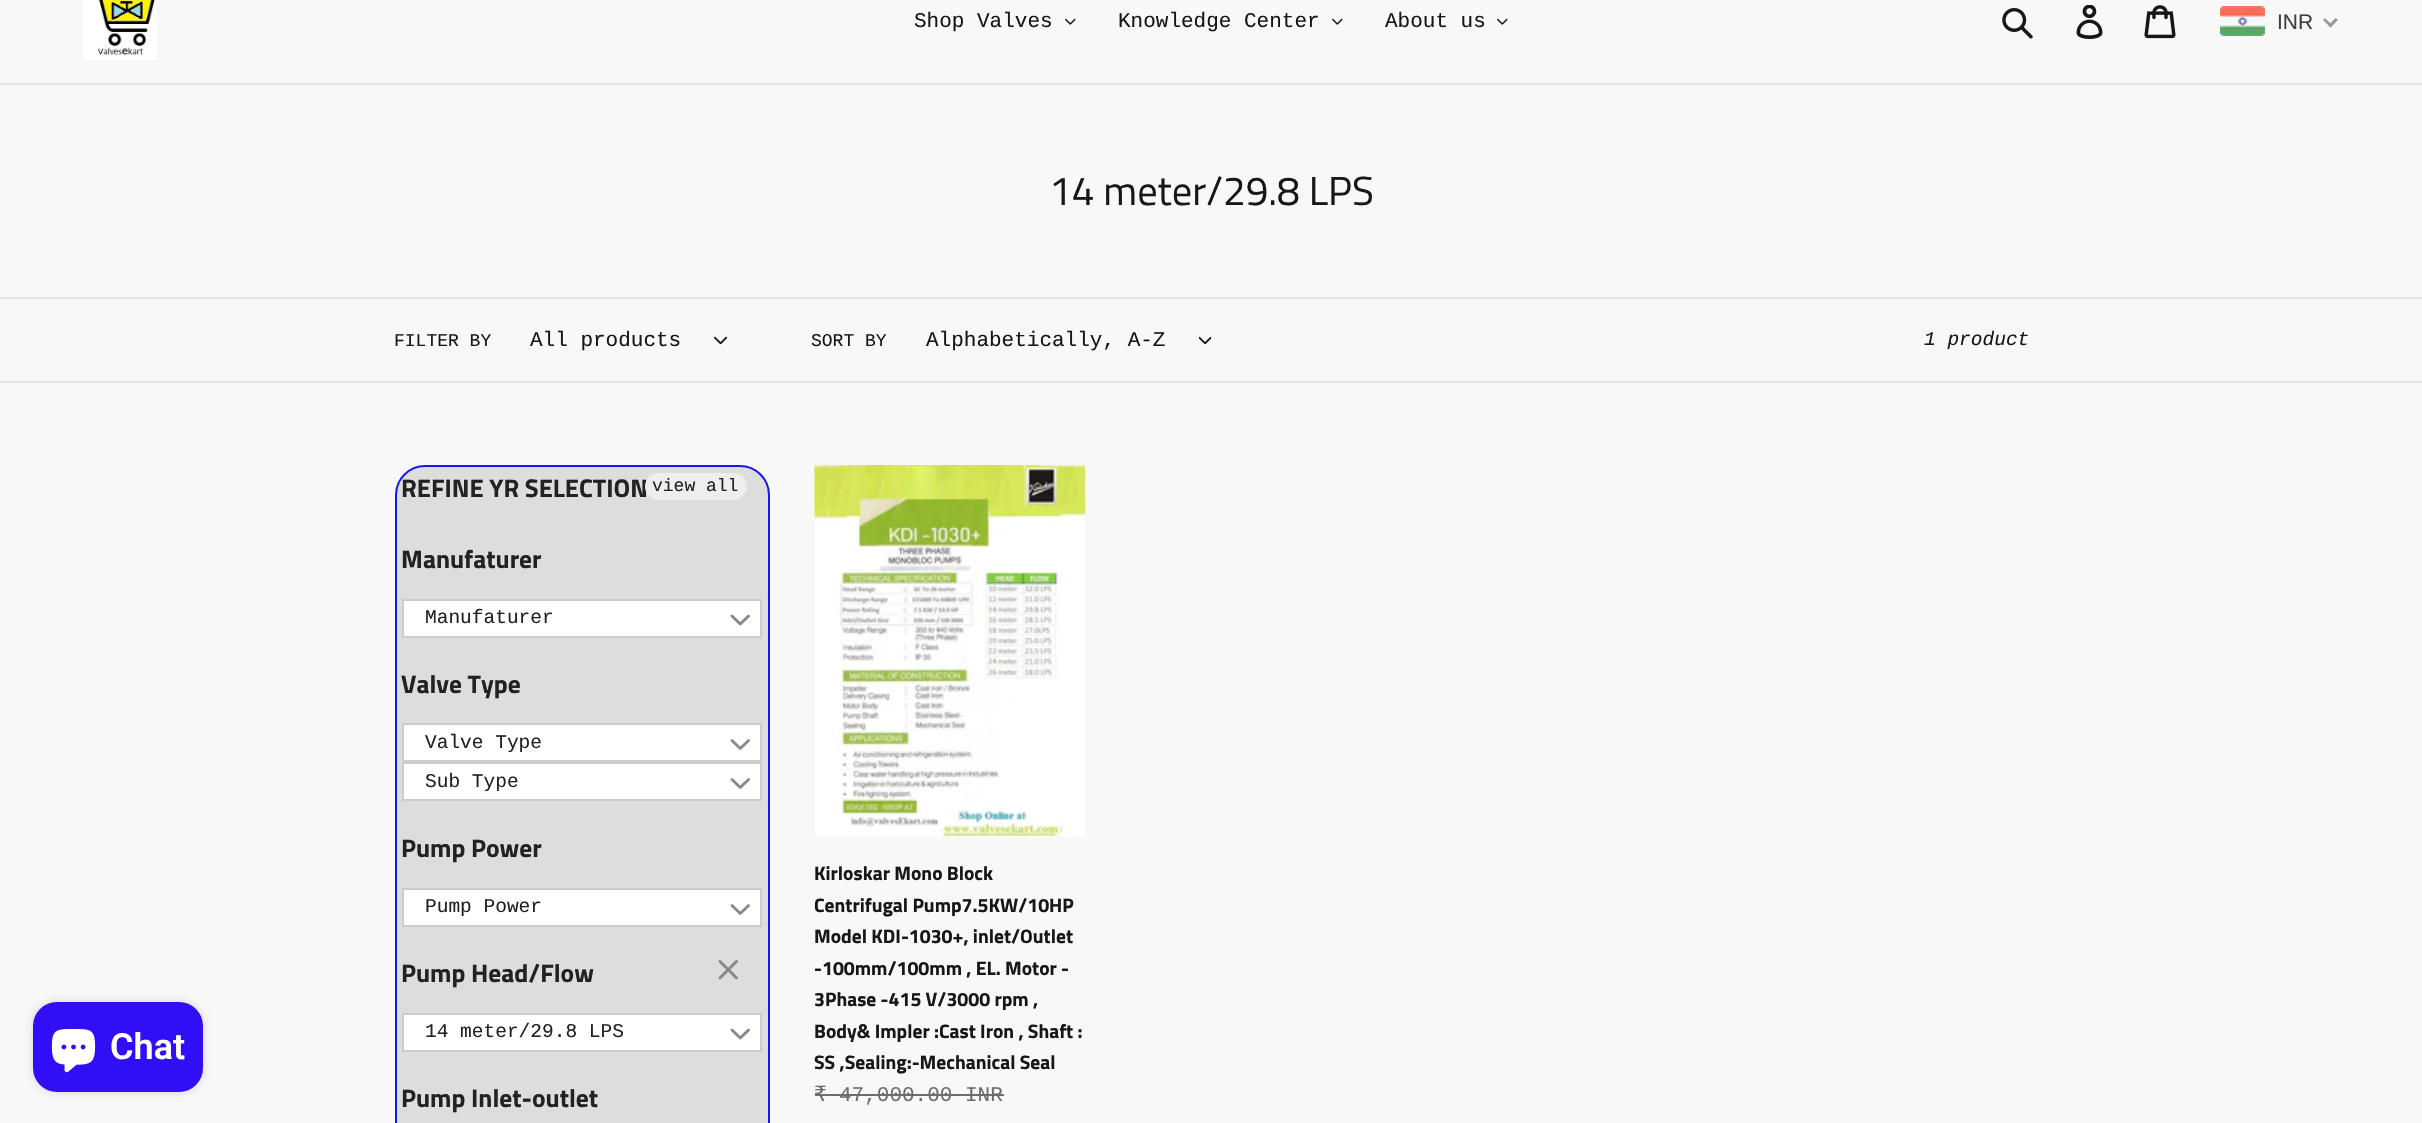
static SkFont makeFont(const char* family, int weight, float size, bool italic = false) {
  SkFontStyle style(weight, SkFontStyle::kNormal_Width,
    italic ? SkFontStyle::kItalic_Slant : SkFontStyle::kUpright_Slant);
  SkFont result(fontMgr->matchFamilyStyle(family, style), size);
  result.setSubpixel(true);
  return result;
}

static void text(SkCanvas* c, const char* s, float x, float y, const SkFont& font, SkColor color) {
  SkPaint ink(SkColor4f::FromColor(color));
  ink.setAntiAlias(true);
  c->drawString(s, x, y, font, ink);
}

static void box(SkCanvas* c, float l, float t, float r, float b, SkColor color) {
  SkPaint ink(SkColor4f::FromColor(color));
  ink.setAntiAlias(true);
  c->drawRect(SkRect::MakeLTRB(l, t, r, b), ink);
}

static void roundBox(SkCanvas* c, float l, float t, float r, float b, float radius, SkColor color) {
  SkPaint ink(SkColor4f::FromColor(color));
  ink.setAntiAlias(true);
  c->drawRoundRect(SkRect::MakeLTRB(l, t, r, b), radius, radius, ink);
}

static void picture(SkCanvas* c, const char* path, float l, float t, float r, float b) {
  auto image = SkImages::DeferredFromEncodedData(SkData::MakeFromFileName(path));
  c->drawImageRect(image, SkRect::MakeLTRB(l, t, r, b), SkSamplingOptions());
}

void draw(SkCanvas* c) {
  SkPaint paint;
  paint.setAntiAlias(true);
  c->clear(0xfff8f8f8);
  box(c, 0, 83, 2422, 85, 0xffe4e4e4);
  picture(c, "img_01.png", 83, 0, 157, 60);
  SkFont face1 = makeFont("Liberation Mono", 400, 21);
  text(c, "Shop Valves", 914, 27, face1, 0xff171719);
  picture(c, "img_02.png", 1065, 18, 1076, 25);
  text(c, "Knowledge Center", 1118, 27, face1, 0xff171719);
  picture(c, "img_02.png", 1332, 18, 1343, 25);
  text(c, "About us", 1385, 27, face1, 0xff171719);
  picture(c, "img_02.png", 1497, 18, 1508, 25);
  picture(c, "img_03.png", 2002, 8, 2033, 39);
  picture(c, "img_04.png", 2076, 5, 2103, 39);
  picture(c, "img_05.png", 2144, 5, 2176, 39);
  picture(c, "img_06.png", 2220, 6, 2265, 36);
  SkFont face2 = makeFont("Liberation Sans", 400, 21);
  text(c, "INR", 2277, 29, face2, 0xff403f3f);
  paint.setColor(0xff999999);
  c->drawPath(SkPathBuilder().moveTo(2335.5f, 18).lineTo(2338, 20).lineTo(2330.5f, 27.5f).lineTo(2328.5f, 25.5f).close().detach(), paint);
  c->drawPath(SkPathBuilder().moveTo(2325, 18).lineTo(2332.5f, 25.5f).lineTo(2330.5f, 27.5f).lineTo(2323, 20).close().detach(), paint);
  paint.setColor(0x26000000);
  paint.setMaskFilter(SkMaskFilter::MakeBlur(kNormal_SkBlurStyle, 4));
  c->drawRoundRect(SkRect::MakeLTRB(33, 1002, 203, 1092), 24, 24, paint);
  paint.setMaskFilter(nullptr);
  roundBox(c, 33, 1002, 203, 1092, 24, 0xff300ef6);
  picture(c, "img_07.png", 51, 1029, 96, 1073);
  SkFont face3 = makeFont("Roboto", 600, 36);
  text(c, "Chat", 110, 1059, face3, 0xffffffff);
  SkFont face4 = makeFont("Titillium Web", 400, 40.5f);
  text(c, "14 meter/29.8 LPS", 1049, 205, face4, 0xff171719);
  box(c, 0, 297, 2422, 299, 0xffe4e4e4);
  box(c, 0, 381, 2422, 383, 0xffe4e4e4);
  SkFont face5 = makeFont("Liberation Mono", 400, 18);
  text(c, "FILTER BY", 394, 346, face5, 0xff171719);
  text(c, "All products", 530, 346, face1, 0xff171719);
  picture(c, "img_08.png", 714, 336, 728, 345);
  text(c, "SORT BY", 811, 346, face5, 0xff171719);
  text(c, "Alphabetically, A-Z", 926, 346, face1, 0xff171719);
  picture(c, "img_09.png", 1199, 336, 1211, 345);
  SkFont face6 = makeFont("Liberation Mono", 400, 19.5f, true);
  text(c, "1 product", 1924, 345, face6, 0xff171719);
  paint.setColor(0xffdddddd);
  c->drawRoundRect(SkRect::MakeLTRB(396, 466, 769, 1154), 29, 29, paint);
  paint.setStyle(SkPaint::kStroke_Style);
  paint.setStrokeWidth(2);
  paint.setColor(0xff1318f0);
  c->drawRoundRect(SkRect::MakeLTRB(396, 466, 769, 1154), 29, 29, paint);
  SkFont face7 = makeFont("Titillium Web", 700, 25.5f);
  text(c, "REFINE YR SELECTION", 401, 497, face7, 0xff222222);
  roundBox(c, 645, 473, 747, 500, 13.5f, 0xffeeeeee);
  text(c, "view all", 652, 491, face5, 0xff222222);
  text(c, "Manufaturer", 401, 568, face7, 0xff222222);
  paint.setStyle(SkPaint::kFill_Style);
  paint.setColor(0xffffffff);
  c->drawRect(SkRect::MakeLTRB(403, 600, 761, 637), paint);
  paint.setStyle(SkPaint::kStroke_Style);
  paint.setColor(0xffcccccc);
  c->drawRect(SkRect::MakeLTRB(403, 600, 761, 637), paint);
  SkFont face8 = makeFont("Liberation Mono", 400, 19.5f);
  text(c, "Manufaturer", 425, 623, face8, 0xff222222);
  picture(c, "img_10.png", 730, 614, 750, 626);
  text(c, "Valve Type", 401, 693, face7, 0xff222222);
  paint.setStyle(SkPaint::kFill_Style);
  paint.setColor(0xffffffff);
  c->drawRect(SkRect::MakeLTRB(403, 724, 761, 761), paint);
  paint.setStyle(SkPaint::kStroke_Style);
  paint.setColor(0xffcccccc);
  c->drawRect(SkRect::MakeLTRB(403, 724, 761, 761), paint);
  text(c, "Valve Type", 425, 748, face8, 0xff222222);
  picture(c, "img_11.png", 730, 739, 750, 750);
  paint.setStyle(SkPaint::kFill_Style);
  paint.setColor(0xffffffff);
  c->drawRect(SkRect::MakeLTRB(403, 763, 761, 800), paint);
  paint.setStyle(SkPaint::kStroke_Style);
  paint.setColor(0xffcccccc);
  c->drawRect(SkRect::MakeLTRB(403, 763, 761, 800), paint);
  text(c, "Sub Type", 425, 787, face8, 0xff222222);
  picture(c, "img_11.png", 730, 778, 750, 789);
  text(c, "Pump Power", 401, 857, face7, 0xff222222);
  paint.setStyle(SkPaint::kFill_Style);
  paint.setColor(0xffffffff);
  c->drawRect(SkRect::MakeLTRB(403, 889, 761, 926), paint);
  paint.setStyle(SkPaint::kStroke_Style);
  paint.setColor(0xffcccccc);
  c->drawRect(SkRect::MakeLTRB(403, 889, 761, 926), paint);
  text(c, "Pump Power", 425, 912, face8, 0xff222222);
  picture(c, "img_11.png", 730, 904, 750, 915);
  text(c, "Pump Head/Flow", 401, 982, face7, 0xff222222);
  picture(c, "img_12.png", 718, 960, 738, 980);
  paint.setStyle(SkPaint::kFill_Style);
  paint.setColor(0xffffffff);
  c->drawRect(SkRect::MakeLTRB(403, 1014, 761, 1051), paint);
  paint.setStyle(SkPaint::kStroke_Style);
  paint.setColor(0xffcccccc);
  c->drawRect(SkRect::MakeLTRB(403, 1014, 761, 1051), paint);
  text(c, "14 meter/29.8 LPS", 425, 1037, face8, 0xff222222);
  picture(c, "img_10.png", 730, 1028, 750, 1040);
  text(c, "Pump Inlet-outlet", 401, 1107, face7, 0xff222222);
  picture(c, "img_13.png", 814, 465, 1085, 838);
  SkFont face9 = makeFont("Titillium Web", 700, 19.5f);
  text(c, "Kirloskar Mono Block", 814, 880, face9, 0xff171719);
  text(c, "Centrifugal Pump7.5KW/10HP", 814, 912, face9, 0xff171719);
  text(c, "Model KDI-1030+, inlet/Outlet", 814, 943, face9, 0xff171719);
  text(c, "-100mm/100mm , EL. Motor", 814, 975, face9, 0xff171719);
  text(c, "-", 1061, 975, face9, 0xff171719);
  text(c, "3Phase -415 V/3000 rpm ,", 814, 1006, face9, 0xff171719);
  text(c, "Body& Impler :Cast Iron , Shaft :", 814, 1038, face9, 0xff171719);
  text(c, "SS ,Sealing:-Mechanical Seal", 814, 1069, face9, 0xff171719);
  SkFont face10 = makeFont("DejaVu Sans Mono", 400, 21);
  text(c, "₹", 814, 1101, face10, 0xff6d6d6d);
  text(c, "47,000.00 INR", 839, 1101, face1, 0xff6d6d6d);
  box(c, 815, 1094, 1004, 1096, 0xff6d6d6d);
}
